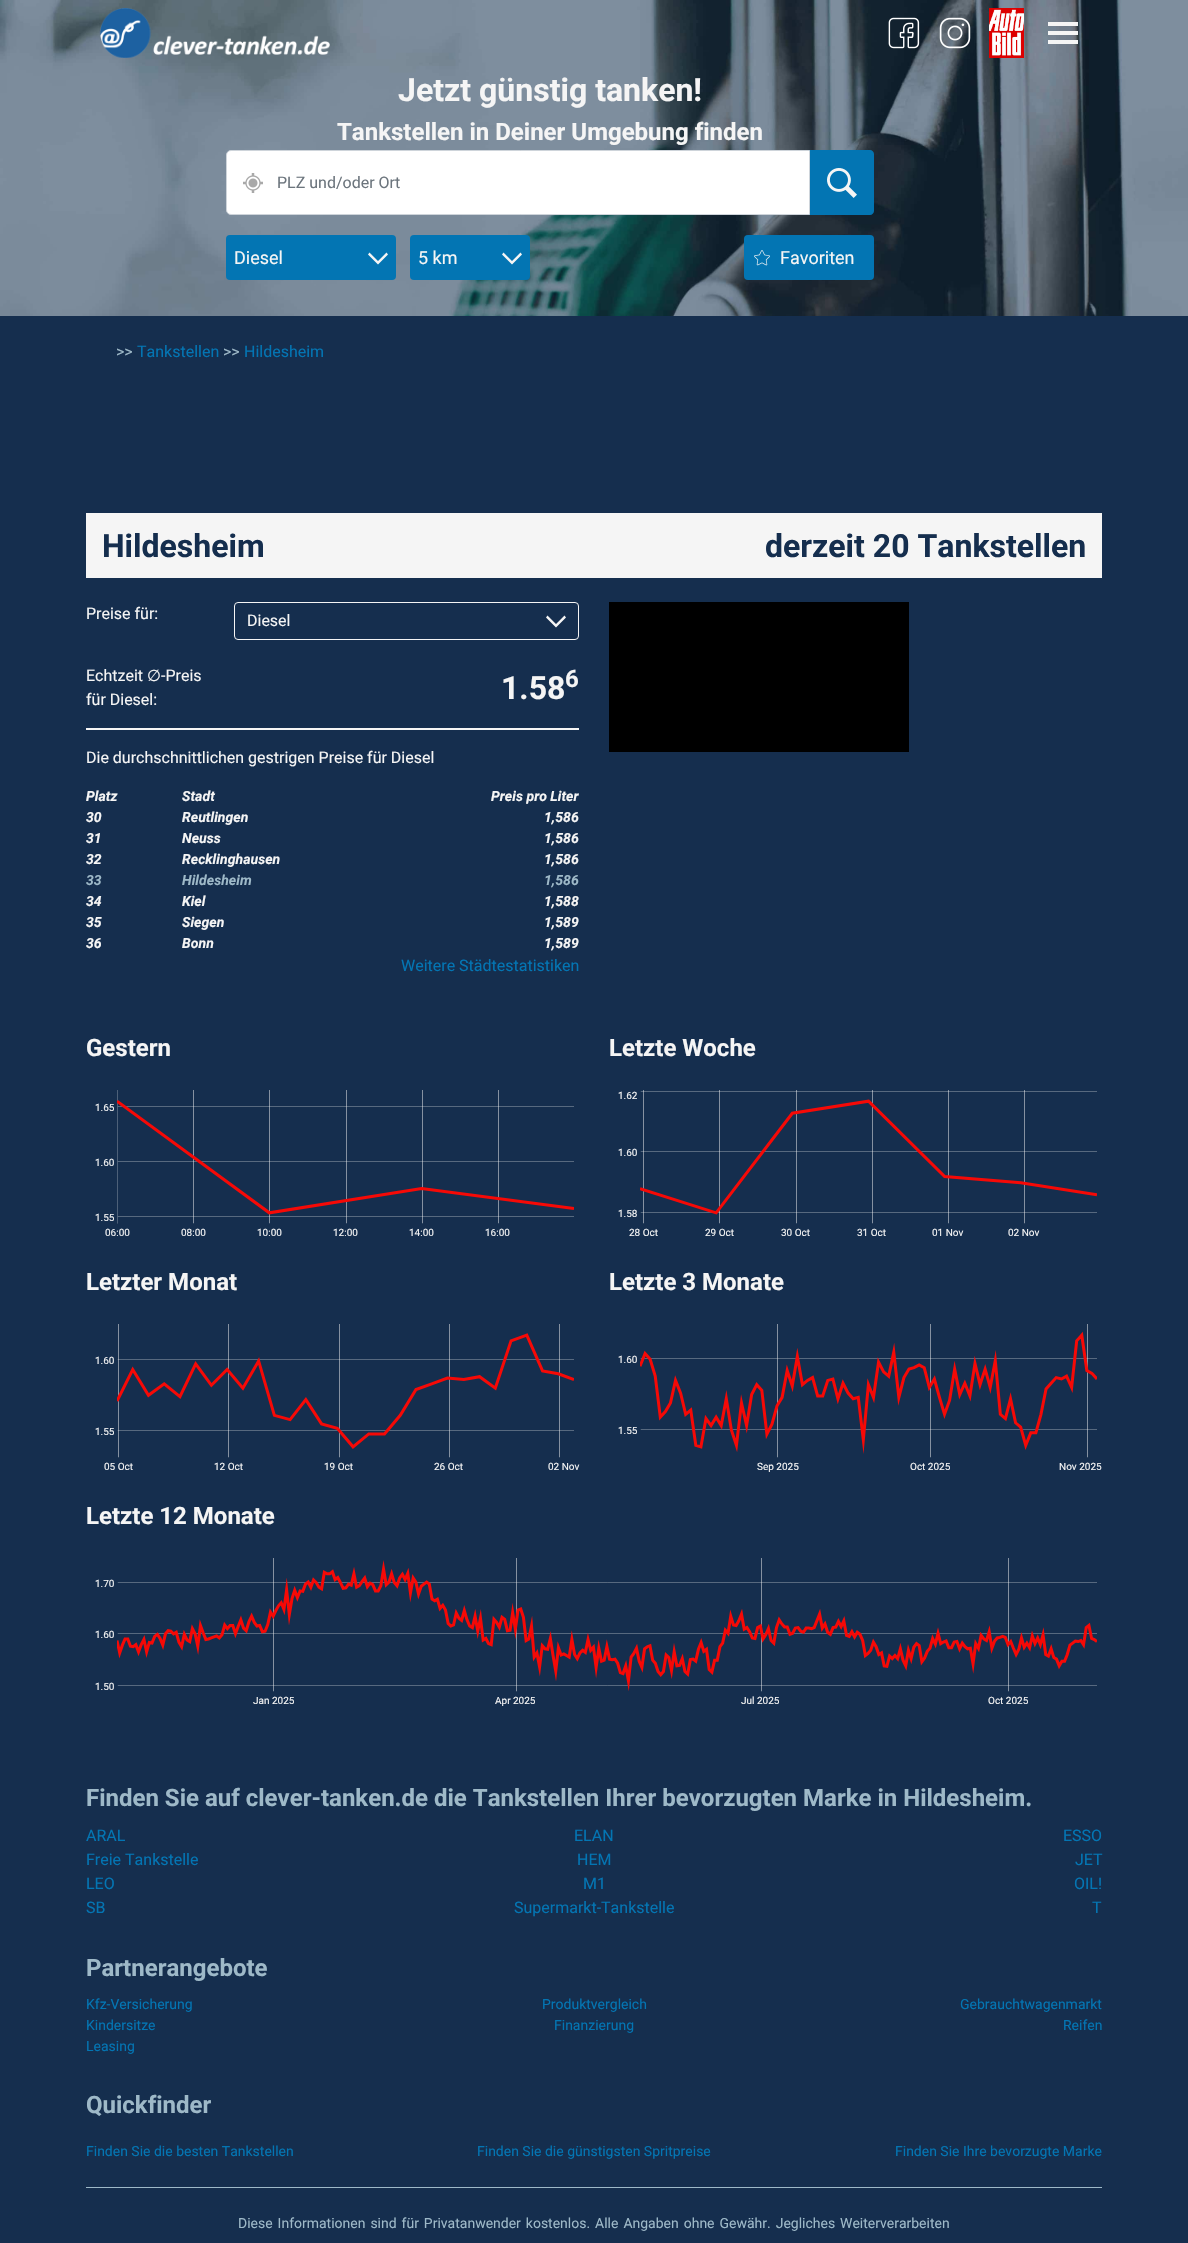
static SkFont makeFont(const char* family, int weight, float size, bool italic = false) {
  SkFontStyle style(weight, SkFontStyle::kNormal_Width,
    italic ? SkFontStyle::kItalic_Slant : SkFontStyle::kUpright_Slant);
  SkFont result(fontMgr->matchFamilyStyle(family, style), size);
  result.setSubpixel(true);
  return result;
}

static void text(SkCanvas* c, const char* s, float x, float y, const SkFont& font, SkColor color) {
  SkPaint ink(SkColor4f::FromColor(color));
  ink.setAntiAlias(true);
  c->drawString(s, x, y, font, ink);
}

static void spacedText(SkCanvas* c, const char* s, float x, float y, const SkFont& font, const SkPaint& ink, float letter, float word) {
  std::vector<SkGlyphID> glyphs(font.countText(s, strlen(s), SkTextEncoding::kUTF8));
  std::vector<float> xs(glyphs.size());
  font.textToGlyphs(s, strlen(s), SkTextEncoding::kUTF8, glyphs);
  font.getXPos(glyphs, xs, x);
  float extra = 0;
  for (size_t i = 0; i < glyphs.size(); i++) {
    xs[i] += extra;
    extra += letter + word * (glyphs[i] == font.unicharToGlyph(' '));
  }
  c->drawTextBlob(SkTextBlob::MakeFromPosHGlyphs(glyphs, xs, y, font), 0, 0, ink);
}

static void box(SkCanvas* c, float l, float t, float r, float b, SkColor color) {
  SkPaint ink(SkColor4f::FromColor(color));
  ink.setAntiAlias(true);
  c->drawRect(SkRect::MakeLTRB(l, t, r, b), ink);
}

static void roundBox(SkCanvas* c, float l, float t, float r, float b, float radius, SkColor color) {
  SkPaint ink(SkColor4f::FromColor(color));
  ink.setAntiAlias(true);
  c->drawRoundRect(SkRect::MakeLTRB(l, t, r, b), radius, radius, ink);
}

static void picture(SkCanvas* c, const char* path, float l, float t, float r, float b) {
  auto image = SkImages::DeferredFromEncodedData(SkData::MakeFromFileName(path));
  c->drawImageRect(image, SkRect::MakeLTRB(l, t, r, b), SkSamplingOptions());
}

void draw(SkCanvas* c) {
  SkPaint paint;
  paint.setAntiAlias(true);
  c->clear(0xff152e4e);
  picture(c, "img_01.png", 0, 0, 1188, 316);
  picture(c, "img_02.png", 100, 8, 330, 58);
  picture(c, "img_03.png", 888, 17, 920, 49);
  picture(c, "img_04.png", 939, 17, 971, 49);
  picture(c, "img_05.png", 989, 8, 1024, 58);
  box(c, 1048, 22, 1078, 26, 0xfff5f5f5);
  box(c, 1048, 31, 1078, 35, 0xfff5f5f5);
  box(c, 1048, 40, 1078, 44, 0xfff5f5f5);
  SkFont face1 = makeFont("Roboto", 700, 32);
  text(c, "Jetzt günstig tanken!", 398, 101, face1, 0xfff5f5f5);
  SkFont face2 = makeFont("Roboto", 700, 24);
  text(c, "Tankstellen in Deiner Umgebung finden", 337, 140, face2, 0xfff5f5f5);
  paint.setColor(0xff0375b3);
  c->drawPath(SkPathBuilder().moveTo(809, 150).lineTo(870, 150).cubicTo(872, 150, 874, 152, 874, 154).lineTo(874, 211).cubicTo(874, 213, 872, 215, 870, 215).lineTo(809, 215).close().detach(), paint);
  paint.setColor(0xffffffff);
  c->drawPath(SkPathBuilder().moveTo(231, 150.5f).lineTo(809.5f, 150.5f).lineTo(809.5f, 214.5f).lineTo(231, 214.5f).cubicTo(228.5f, 214.5f, 226.5f, 212.5f, 226.5f, 210).lineTo(226.5f, 155).cubicTo(226.5f, 152.5f, 228.5f, 150.5f, 231, 150.5f).close().detach(), paint);
  paint.setStyle(SkPaint::kStroke_Style);
  paint.setStrokeWidth(1);
  paint.setColor(0xffced4da);
  c->drawPath(SkPathBuilder().moveTo(231, 150.5f).lineTo(809.5f, 150.5f).lineTo(809.5f, 214.5f).lineTo(231, 214.5f).cubicTo(228.5f, 214.5f, 226.5f, 212.5f, 226.5f, 210).lineTo(226.5f, 155).cubicTo(226.5f, 152.5f, 228.5f, 150.5f, 231, 150.5f).close().detach(), paint);
  picture(c, "img_06.png", 243, 173, 263, 193);
  SkFont face3 = makeFont("Roboto", 400, 16);
  text(c, "PLZ und/oder Ort", 277, 188, face3, 0xff6c757d);
  picture(c, "img_07.png", 827, 168, 857, 198);
  roundBox(c, 226, 235, 396, 280, 4, 0xff0375b3);
  SkFont face4 = makeFont("Roboto", 400, 18);
  text(c, "Diesel", 234, 264, face4, 0xfff5f5f5);
  paint.setStyle(SkPaint::kFill_Style);
  paint.setColor(0xfff5f5f5);
  c->drawPath(SkPathBuilder().moveTo(378, 264.5f).lineTo(368, 254.5f).lineTo(369.5f, 252.5f).lineTo(378, 261).lineTo(386.5f, 252.5f).lineTo(388, 254.5f).close().detach(), paint);
  roundBox(c, 410, 235, 530, 280, 4, 0xff0375b3);
  text(c, "5 km", 418, 264, face4, 0xfff5f5f5);
  c->drawPath(SkPathBuilder().moveTo(512, 264.5f).lineTo(502, 254.5f).lineTo(503.5f, 252.5f).lineTo(512, 261).lineTo(520.5f, 252.5f).lineTo(522, 254.5f).close().detach(), paint);
  roundBox(c, 744, 235, 874, 280, 4, 0xff0375b3);
  picture(c, "img_08.png", 754, 250, 770, 266);
  text(c, "Favoriten", 780, 264, face4, 0xfff5f5f5);
  text(c, ">>", 116, 357, face3, 0xff9eb9c8);
  text(c, "Tankstellen", 137, 357, face3, 0xff0375b3);
  text(c, ">>", 223, 357, face3, 0xff9eb9c8);
  text(c, "Hildesheim", 244, 357, face3, 0xff0375b3);
  box(c, 86, 513, 1102, 578, 0xfff5f5f5);
  text(c, "Hildesheim", 102, 557, face1, 0xff152e4e);
  text(c, "derzeit 20 Tankstellen", 765, 557, face1, 0xff152e4e);
  text(c, "Preise für:", 86, 619, face3, 0xfff5f5f5);
  paint.setStyle(SkPaint::kStroke_Style);
  c->drawRoundRect(SkRect::MakeLTRB(234.5f, 602.5f, 578.5f, 639.5f), 3.5f, 3.5f, paint);
  text(c, "Diesel", 247, 626, face3, 0xfff5f5f5);
  paint.setStyle(SkPaint::kFill_Style);
  c->drawPath(SkPathBuilder().moveTo(556, 627.5f).lineTo(546, 617.5f).lineTo(547.5f, 615.5f).lineTo(556, 624).lineTo(564.5f, 615.5f).lineTo(566, 617.5f).close().detach(), paint);
  text(c, "Echtzeit", 86, 681, face3, 0xfff5f5f5);
  SkFont face5 = makeFont("DejaVu Sans", 400, 16);
  text(c, "∅", 147, 681, face5, 0xfff5f5f5);
  text(c, "-Preis", 161, 681, face3, 0xfff5f5f5);
  text(c, "für Diesel:", 86, 705, face3, 0xfff5f5f5);
  text(c, "1.58", 501, 699, face1, 0xfff5f5f5);
  text(c, "6", 565, 687, face2, 0xfff5f5f5);
  box(c, 86, 728, 579, 730, 0xfff5f5f5);
  text(c, "Die durchschnittlichen gestrigen Preise für Diesel", 86, 763, face3, 0xfff5f5f5);
  SkFont face6 = makeFont("Roboto", 700, 14, true);
  text(c, "Platz", 86, 801, face6, 0xfff5f5f5);
  text(c, "Stadt", 182, 801, face6, 0xfff5f5f5);
  text(c, "Preis pro Liter", 491, 801, face6, 0xfff5f5f5);
  text(c, "30", 86, 822, face6, 0xfff5f5f5);
  text(c, "Reutlingen", 182, 822, face6, 0xfff5f5f5);
  text(c, "1,586", 544, 822, face6, 0xfff5f5f5);
  text(c, "31", 86, 843, face6, 0xfff5f5f5);
  text(c, "Neuss", 182, 843, face6, 0xfff5f5f5);
  text(c, "1,586", 544, 843, face6, 0xfff5f5f5);
  text(c, "32", 86, 864, face6, 0xfff5f5f5);
  text(c, "Recklinghausen", 182, 864, face6, 0xfff5f5f5);
  text(c, "1,586", 544, 864, face6, 0xfff5f5f5);
  text(c, "33", 86, 885, face6, 0xff9eb9c8);
  text(c, "Hildesheim", 182, 885, face6, 0xff9eb9c8);
  text(c, "1,586", 544, 885, face6, 0xff9eb9c8);
  text(c, "34", 86, 906, face6, 0xfff5f5f5);
  text(c, "Kiel", 182, 906, face6, 0xfff5f5f5);
  text(c, "1,588", 544, 906, face6, 0xfff5f5f5);
  text(c, "35", 86, 927, face6, 0xfff5f5f5);
  text(c, "Siegen", 182, 927, face6, 0xfff5f5f5);
  text(c, "1,589", 544, 927, face6, 0xfff5f5f5);
  text(c, "36", 86, 948, face6, 0xfff5f5f5);
  text(c, "Bonn", 182, 948, face6, 0xfff5f5f5);
  text(c, "1,589", 544, 948, face6, 0xfff5f5f5);
  text(c, "Weitere Städtestatistiken", 401, 971, face3, 0xff0375b3);
  box(c, 609, 602, 909, 752, 0xff000000);
  text(c, "Gestern", 86, 1056, face2, 0xfff5f5f5);
  SkFont face7 = makeFont("Roboto", 400, 10);
  text(c, "1.65", 95, 1111, face7, 0xfff5f5f5);
  picture(c, "img_09.png", 117, 1090, 574, 1224);
  text(c, "1.60", 95, 1166, face7, 0xfff5f5f5);
  text(c, "1.55", 95, 1221, face7, 0xfff5f5f5);
  text(c, "06:00", 105, 1236, face7, 0xfff5f5f5);
  text(c, "08:00", 181, 1236, face7, 0xfff5f5f5);
  text(c, "10:00", 257, 1236, face7, 0xfff5f5f5);
  text(c, "12:00", 333, 1236, face7, 0xfff5f5f5);
  text(c, "14:00", 409, 1236, face7, 0xfff5f5f5);
  text(c, "16:00", 485, 1236, face7, 0xfff5f5f5);
  text(c, "Letzte Woche", 609, 1056, face2, 0xfff5f5f5);
  text(c, "1.62", 618, 1099, face7, 0xfff5f5f5);
  picture(c, "img_10.png", 640, 1090, 1097, 1224);
  text(c, "1.60", 618, 1156, face7, 0xfff5f5f5);
  text(c, "1.58", 618, 1217, face7, 0xfff5f5f5);
  text(c, "28 Oct", 629, 1236, face7, 0xfff5f5f5);
  text(c, "29 Oct", 705, 1236, face7, 0xfff5f5f5);
  text(c, "30 Oct", 781, 1236, face7, 0xfff5f5f5);
  text(c, "31 Oct", 857, 1236, face7, 0xfff5f5f5);
  text(c, "01 Nov", 932, 1236, face7, 0xfff5f5f5);
  text(c, "02 Nov", 1008, 1236, face7, 0xfff5f5f5);
  text(c, "Letzter Monat", 86, 1290, face2, 0xfff5f5f5);
  text(c, "1.60", 95, 1364, face7, 0xfff5f5f5);
  picture(c, "img_11.png", 117, 1324, 574, 1458);
  text(c, "1.55", 95, 1435, face7, 0xfff5f5f5);
  text(c, "05 Oct", 104, 1470, face7, 0xfff5f5f5);
  text(c, "12 Oct", 214, 1470, face7, 0xfff5f5f5);
  text(c, "19 Oct", 324, 1470, face7, 0xfff5f5f5);
  text(c, "26 Oct", 434, 1470, face7, 0xfff5f5f5);
  text(c, "02 Nov", 548, 1470, face7, 0xfff5f5f5);
  text(c, "Letzte 3 Monate", 609, 1290, face2, 0xfff5f5f5);
  text(c, "1.60", 618, 1363, face7, 0xfff5f5f5);
  picture(c, "img_12.png", 640, 1324, 1097, 1458);
  text(c, "1.55", 618, 1434, face7, 0xfff5f5f5);
  text(c, "Sep 2025", 757, 1470, face7, 0xfff5f5f5);
  text(c, "Oct 2025", 910, 1470, face7, 0xfff5f5f5);
  text(c, "Nov 2025", 1059, 1470, face7, 0xfff5f5f5);
  text(c, "Letzte 12 Monate", 86, 1524, face2, 0xfff5f5f5);
  text(c, "1.70", 95, 1587, face7, 0xfff5f5f5);
  picture(c, "img_13.png", 117, 1558, 1097, 1692);
  text(c, "1.60", 95, 1638, face7, 0xfff5f5f5);
  text(c, "1.50", 95, 1690, face7, 0xfff5f5f5);
  text(c, "Jan 2025", 253, 1704, face7, 0xfff5f5f5);
  text(c, "Apr 2025", 495, 1704, face7, 0xfff5f5f5);
  text(c, "Jul 2025", 741, 1704, face7, 0xfff5f5f5);
  text(c, "Oct 2025", 988, 1704, face7, 0xfff5f5f5);
  text(c, "Finden Sie auf clever-tanken.de die Tankstellen Ihrer bevorzugten Marke in Hildesheim.", 86, 1806, face2, 0xff9eb9c8);
  text(c, "ARAL", 86, 1841, face3, 0xff0375b3);
  text(c, "ELAN", 574, 1841, face3, 0xff0375b3);
  text(c, "ESSO", 1063, 1841, face3, 0xff0375b3);
  text(c, "Freie Tankstelle", 86, 1865, face3, 0xff0375b3);
  text(c, "HEM", 577, 1865, face3, 0xff0375b3);
  text(c, "JET", 1075, 1865, face3, 0xff0375b3);
  text(c, "LEO", 86, 1889, face3, 0xff0375b3);
  text(c, "M1", 583, 1889, face3, 0xff0375b3);
  text(c, "OIL!", 1074, 1889, face3, 0xff0375b3);
  text(c, "SB", 86, 1913, face3, 0xff0375b3);
  text(c, "Supermarkt-Tankstelle", 514, 1913, face3, 0xff0375b3);
  text(c, "T", 1092, 1913, face3, 0xff0375b3);
  text(c, "Partnerangebote", 86, 1976, face2, 0xff9eb9c8);
  SkFont face8 = makeFont("Roboto", 400, 14);
  text(c, "Kfz-Versicherung", 86, 2009, face8, 0xff0375b3);
  text(c, "Produktvergleich", 542, 2009, face8, 0xff0375b3);
  text(c, "Gebrauchtwagenmarkt", 960, 2009, face8, 0xff0375b3);
  text(c, "Kindersitze", 86, 2030, face8, 0xff0375b3);
  text(c, "Finanzierung", 554, 2030, face8, 0xff0375b3);
  text(c, "Reifen", 1063, 2030, face8, 0xff0375b3);
  text(c, "Leasing", 86, 2051, face8, 0xff0375b3);
  text(c, "Quickfinder", 86, 2113, face2, 0xff9eb9c8);
  text(c, "Finden Sie die besten Tankstellen", 86, 2156, face8, 0xff0375b3);
  text(c, "Finden Sie die günstigsten Spritpreise", 477, 2156, face8, 0xff0375b3);
  text(c, "Finden Sie Ihre bevorzugte Marke", 895, 2156, face8, 0xff0375b3);
  box(c, 86, 2187, 1102, 2188, 0xff9eb9c8);
  paint.setColor(0xff9eb9c8);
  spacedText(c, "Diese Informationen sind für Privatanwender kostenlos. Alle Angaben ohne Gewähr. Jegliches", 238, 2228, face8, paint, 0, 1.5f);
  text(c, "Weiterverarbeiten", 840, 2228, face8, 0xff9eb9c8);
}
